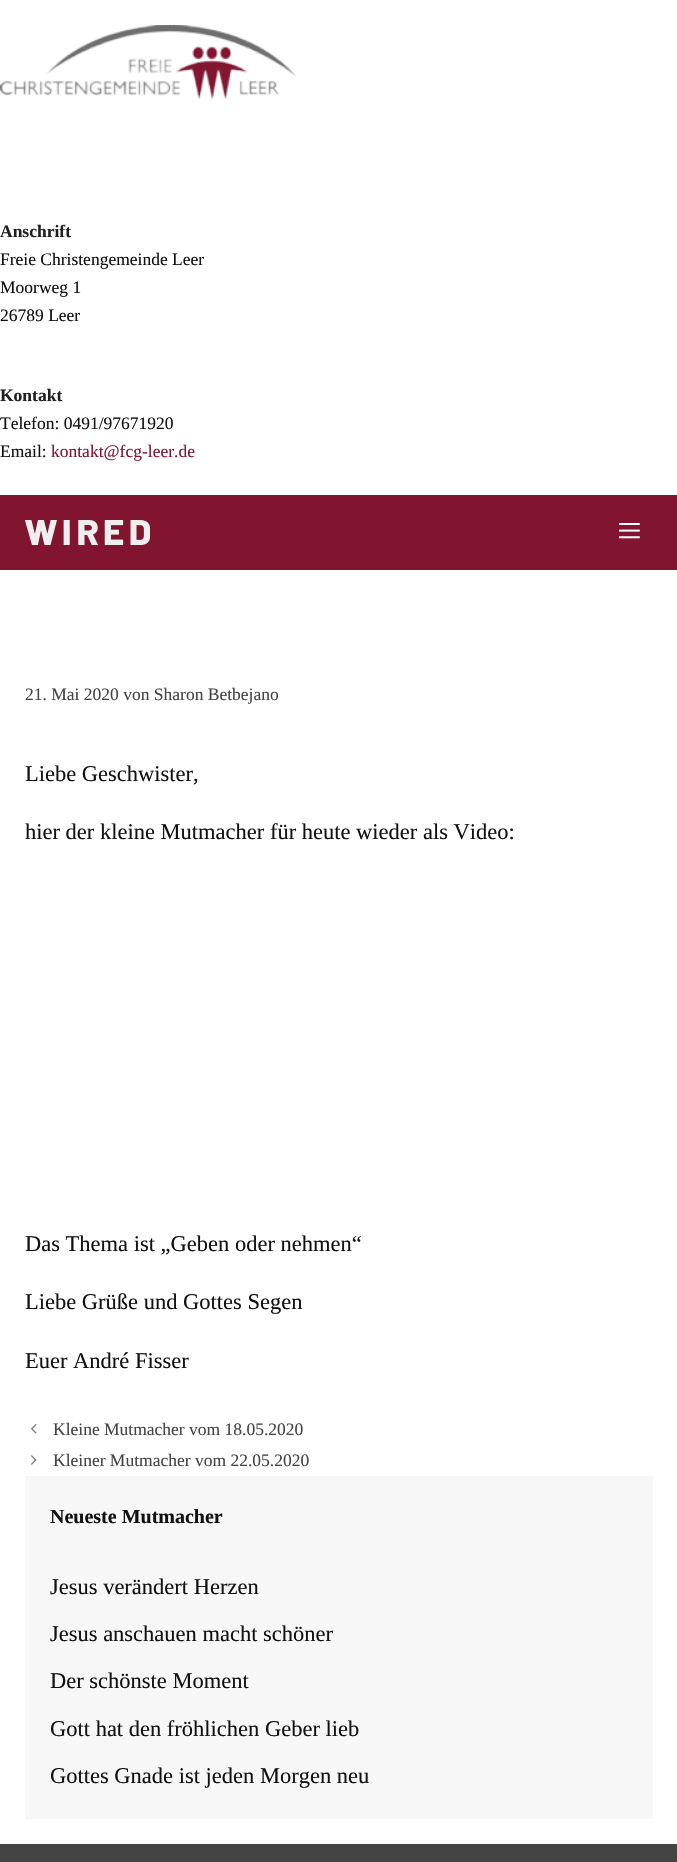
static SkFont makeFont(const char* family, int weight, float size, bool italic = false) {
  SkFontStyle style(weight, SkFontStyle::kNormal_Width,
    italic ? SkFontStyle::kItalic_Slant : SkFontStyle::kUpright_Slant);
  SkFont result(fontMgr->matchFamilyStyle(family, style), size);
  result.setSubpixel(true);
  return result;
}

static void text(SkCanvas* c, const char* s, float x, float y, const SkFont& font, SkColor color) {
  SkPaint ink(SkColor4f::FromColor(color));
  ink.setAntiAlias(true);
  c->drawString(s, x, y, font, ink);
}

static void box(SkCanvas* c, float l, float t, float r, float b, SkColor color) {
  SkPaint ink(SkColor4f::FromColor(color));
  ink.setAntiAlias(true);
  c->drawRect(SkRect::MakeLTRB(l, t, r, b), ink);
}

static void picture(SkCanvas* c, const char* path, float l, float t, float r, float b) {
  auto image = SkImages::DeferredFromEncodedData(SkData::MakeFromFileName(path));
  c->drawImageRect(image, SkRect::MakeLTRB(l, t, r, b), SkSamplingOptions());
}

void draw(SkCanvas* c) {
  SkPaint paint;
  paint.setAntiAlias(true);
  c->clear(0xffffffff);
  picture(c, "img_01.png", 0, 25, 297, 100);
  SkFont face1 = makeFont("Liberation Serif", 700, 17.5f);
  text(c, "Anschrift", 0, 237, face1, 0xff202020);
  SkFont face2 = makeFont("Liberation Serif", 400, 17.5f);
  text(c, "Freie Christengemeinde Leer", 0, 265, face2, 0xff111111);
  text(c, "Moorweg 1", 0, 293, face2, 0xff111111);
  text(c, "26789 Leer", 0, 321, face2, 0xff111111);
  text(c, "Kontakt", 0, 401, face1, 0xff202020);
  text(c, "Telefon: 0491/97671920", 0, 429, face2, 0xff111111);
  text(c, "Email:", 0, 457, face2, 0xff111111);
  text(c, "kontakt@fcg-leer.de", 51, 457, face2, 0xff811530);
  box(c, 0, 495, 677, 570, 0xff811530);
  picture(c, "img_02.png", 25, 520, 150, 545);
  picture(c, "img_03.png", 619, 523, 640, 539);
  text(c, "21. Mai 2020 von Sharon Betbejano", 25, 700, face2, 0xff444444);
  SkFont face3 = makeFont("Liberation Serif", 400, 22.5f);
  text(c, "Liebe Geschwister,", 25, 781, face3, 0xff111111);
  text(c, "hier der kleine Mutmacher für heute wieder als Video:", 25, 839, face3, 0xff111111);
  text(c, "Das Thema ist „Geben oder nehmen“", 25, 1251, face3, 0xff111111);
  text(c, "Liebe Grüße und Gottes Segen", 25, 1309, face3, 0xff111111);
  text(c, "Euer André Fisser", 25, 1368, face3, 0xff111111);
  picture(c, "img_04.png", 31, 1424, 37, 1434);
  text(c, "Kleine Mutmacher vom 18.05.2020", 53, 1435, face2, 0xff444444);
  picture(c, "img_05.png", 31, 1455, 37, 1465);
  text(c, "Kleiner Mutmacher vom 22.05.2020", 53, 1466, face2, 0xff444444);
  box(c, 25, 1476, 653, 1819, 0xfff7f7f7);
  SkFont face4 = makeFont("Liberation Serif", 700, 20);
  text(c, "Neueste Mutmacher", 50, 1523, face4, 0xff111111);
  text(c, "Jesus verändert Herzen", 50, 1594, face3, 0xff111111);
  text(c, "Jesus anschauen macht schöner", 50, 1641, face3, 0xff111111);
  text(c, "Der schönste Moment", 50, 1688, face3, 0xff111111);
  text(c, "Gott hat den fröhlichen Geber lieb", 50, 1736, face3, 0xff111111);
  text(c, "Gottes Gnade ist jeden Morgen neu", 50, 1783, face3, 0xff111111);
  box(c, 0, 1844, 677, 1862, 0xff444444);
}
